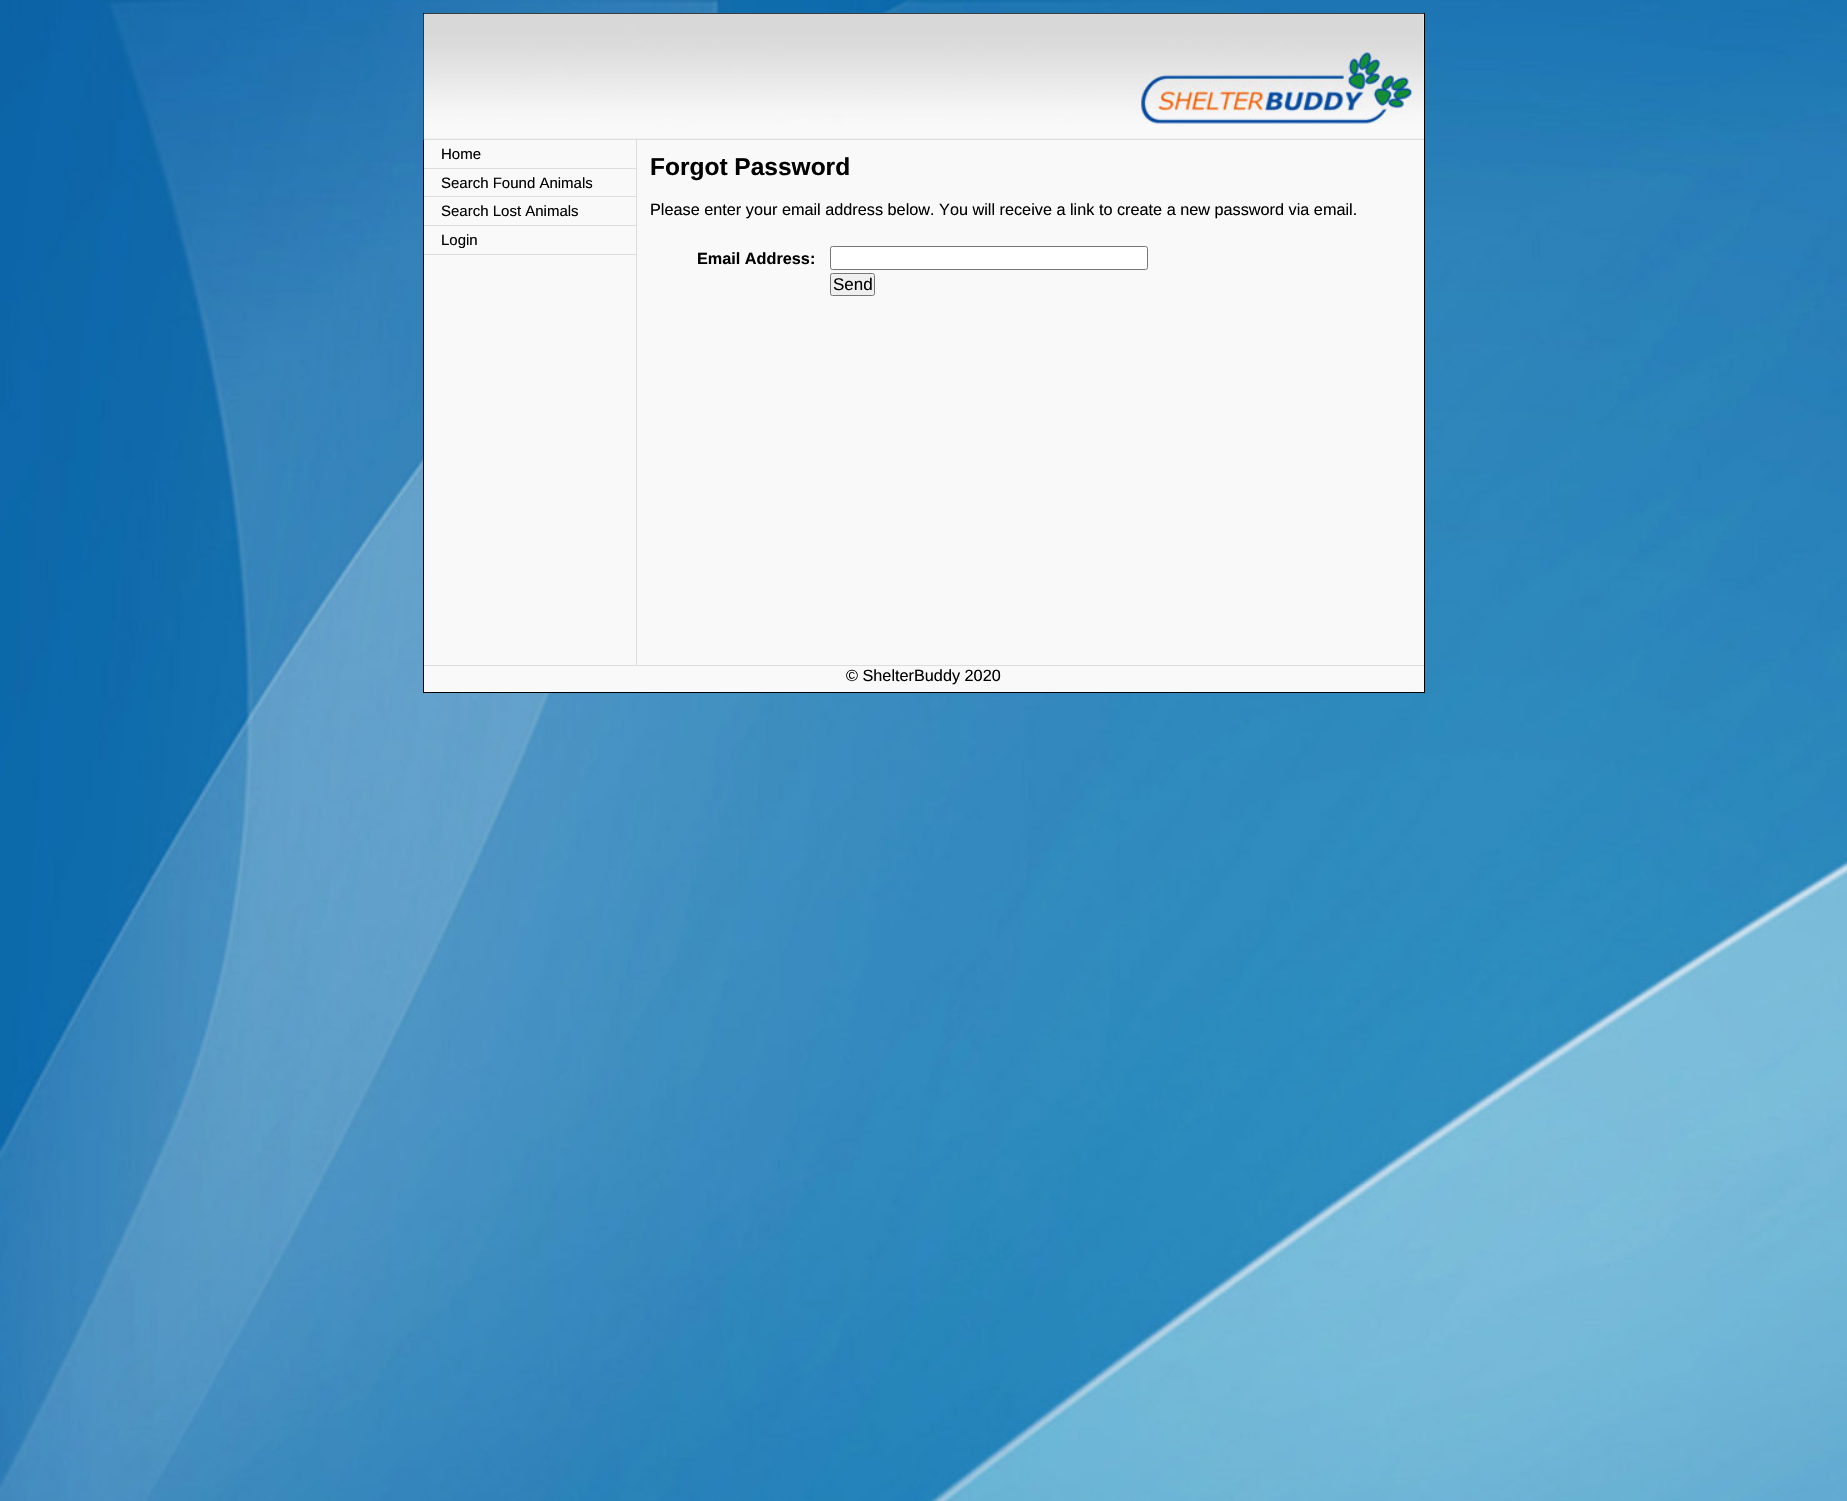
static SkFont makeFont(const char* family, int weight, float size, bool italic = false) {
  SkFontStyle style(weight, SkFontStyle::kNormal_Width,
    italic ? SkFontStyle::kItalic_Slant : SkFontStyle::kUpright_Slant);
  SkFont result(fontMgr->matchFamilyStyle(family, style), size);
  result.setSubpixel(true);
  return result;
}

static void text(SkCanvas* c, const char* s, float x, float y, const SkFont& font, SkColor color) {
  SkPaint ink(SkColor4f::FromColor(color));
  ink.setAntiAlias(true);
  c->drawString(s, x, y, font, ink);
}

static void box(SkCanvas* c, float l, float t, float r, float b, SkColor color) {
  SkPaint ink(SkColor4f::FromColor(color));
  ink.setAntiAlias(true);
  c->drawRect(SkRect::MakeLTRB(l, t, r, b), ink);
}

static void picture(SkCanvas* c, const char* path, float l, float t, float r, float b) {
  auto image = SkImages::DeferredFromEncodedData(SkData::MakeFromFileName(path));
  c->drawImageRect(image, SkRect::MakeLTRB(l, t, r, b), SkSamplingOptions());
}

void draw(SkCanvas* c) {
  SkPaint paint;
  paint.setAntiAlias(true);
  c->clear(0xffffffff);
  picture(c, "img_01.png", 0, 0, 1847, 1501);
  paint.setColor(0xfff9f9f9);
  c->drawRect(SkRect::MakeLTRB(423.5f, 13.5f, 1424.5f, 692.5f), paint);
  paint.setStyle(SkPaint::kStroke_Style);
  paint.setStrokeWidth(1);
  paint.setColor(0xff000000);
  c->drawRect(SkRect::MakeLTRB(423.5f, 13.5f, 1424.5f, 692.5f), paint);
  picture(c, "img_02.png", 423, 13, 1424, 140);
  box(c, 424, 139, 1424, 140, 0xffdddddd);
  box(c, 424, 168, 636, 169, 0xffdddddd);
  SkFont face1 = makeFont("Liberation Sans", 400, 15);
  text(c, "Home", 441, 159, face1, 0xff000000);
  box(c, 424, 196, 636, 197, 0xffdddddd);
  text(c, "Search Found Animals", 441, 188, face1, 0xff000000);
  box(c, 424, 225, 636, 226, 0xffdddddd);
  text(c, "Search Lost Animals", 441, 216, face1, 0xff000000);
  box(c, 424, 254, 636, 255, 0xffdddddd);
  text(c, "Login", 441, 245, face1, 0xff000000);
  box(c, 636, 140, 637, 665, 0xffdddddd);
  SkFont face2 = makeFont("Liberation Sans", 700, 24.5f);
  text(c, "Forgot Password", 650, 175, face2, 0xff000000);
  SkFont face3 = makeFont("Liberation Sans", 400, 16.25f);
  text(c, "Please enter your email address below. You will receive a link to create a new password via email.", 650, 215, face3, 0xff000000);
  SkFont face4 = makeFont("Liberation Sans", 700, 16.25f);
  text(c, "Email Address:", 697, 264, face4, 0xff000000);
  paint.setStyle(SkPaint::kFill_Style);
  paint.setColor(0xffffffff);
  c->drawRoundRect(SkRect::MakeLTRB(830.5f, 246.5f, 1147.5f, 269.5f), 2, 2, paint);
  paint.setStyle(SkPaint::kStroke_Style);
  paint.setColor(0xff767676);
  c->drawRoundRect(SkRect::MakeLTRB(830.5f, 246.5f, 1147.5f, 269.5f), 2, 2, paint);
  paint.setStyle(SkPaint::kFill_Style);
  paint.setColor(0xffefefef);
  c->drawRoundRect(SkRect::MakeLTRB(830.5f, 273.5f, 874.5f, 295.5f), 2, 2, paint);
  paint.setStyle(SkPaint::kStroke_Style);
  paint.setColor(0xff767676);
  c->drawRoundRect(SkRect::MakeLTRB(830.5f, 273.5f, 874.5f, 295.5f), 2, 2, paint);
  SkFont face5 = makeFont("Liberation Sans", 400, 17);
  text(c, "Send", 833, 290, face5, 0xff000000);
  box(c, 424, 665, 1424, 666, 0xffdddddd);
  text(c, "© ShelterBuddy 2020", 846, 681, face3, 0xff000000);
}
